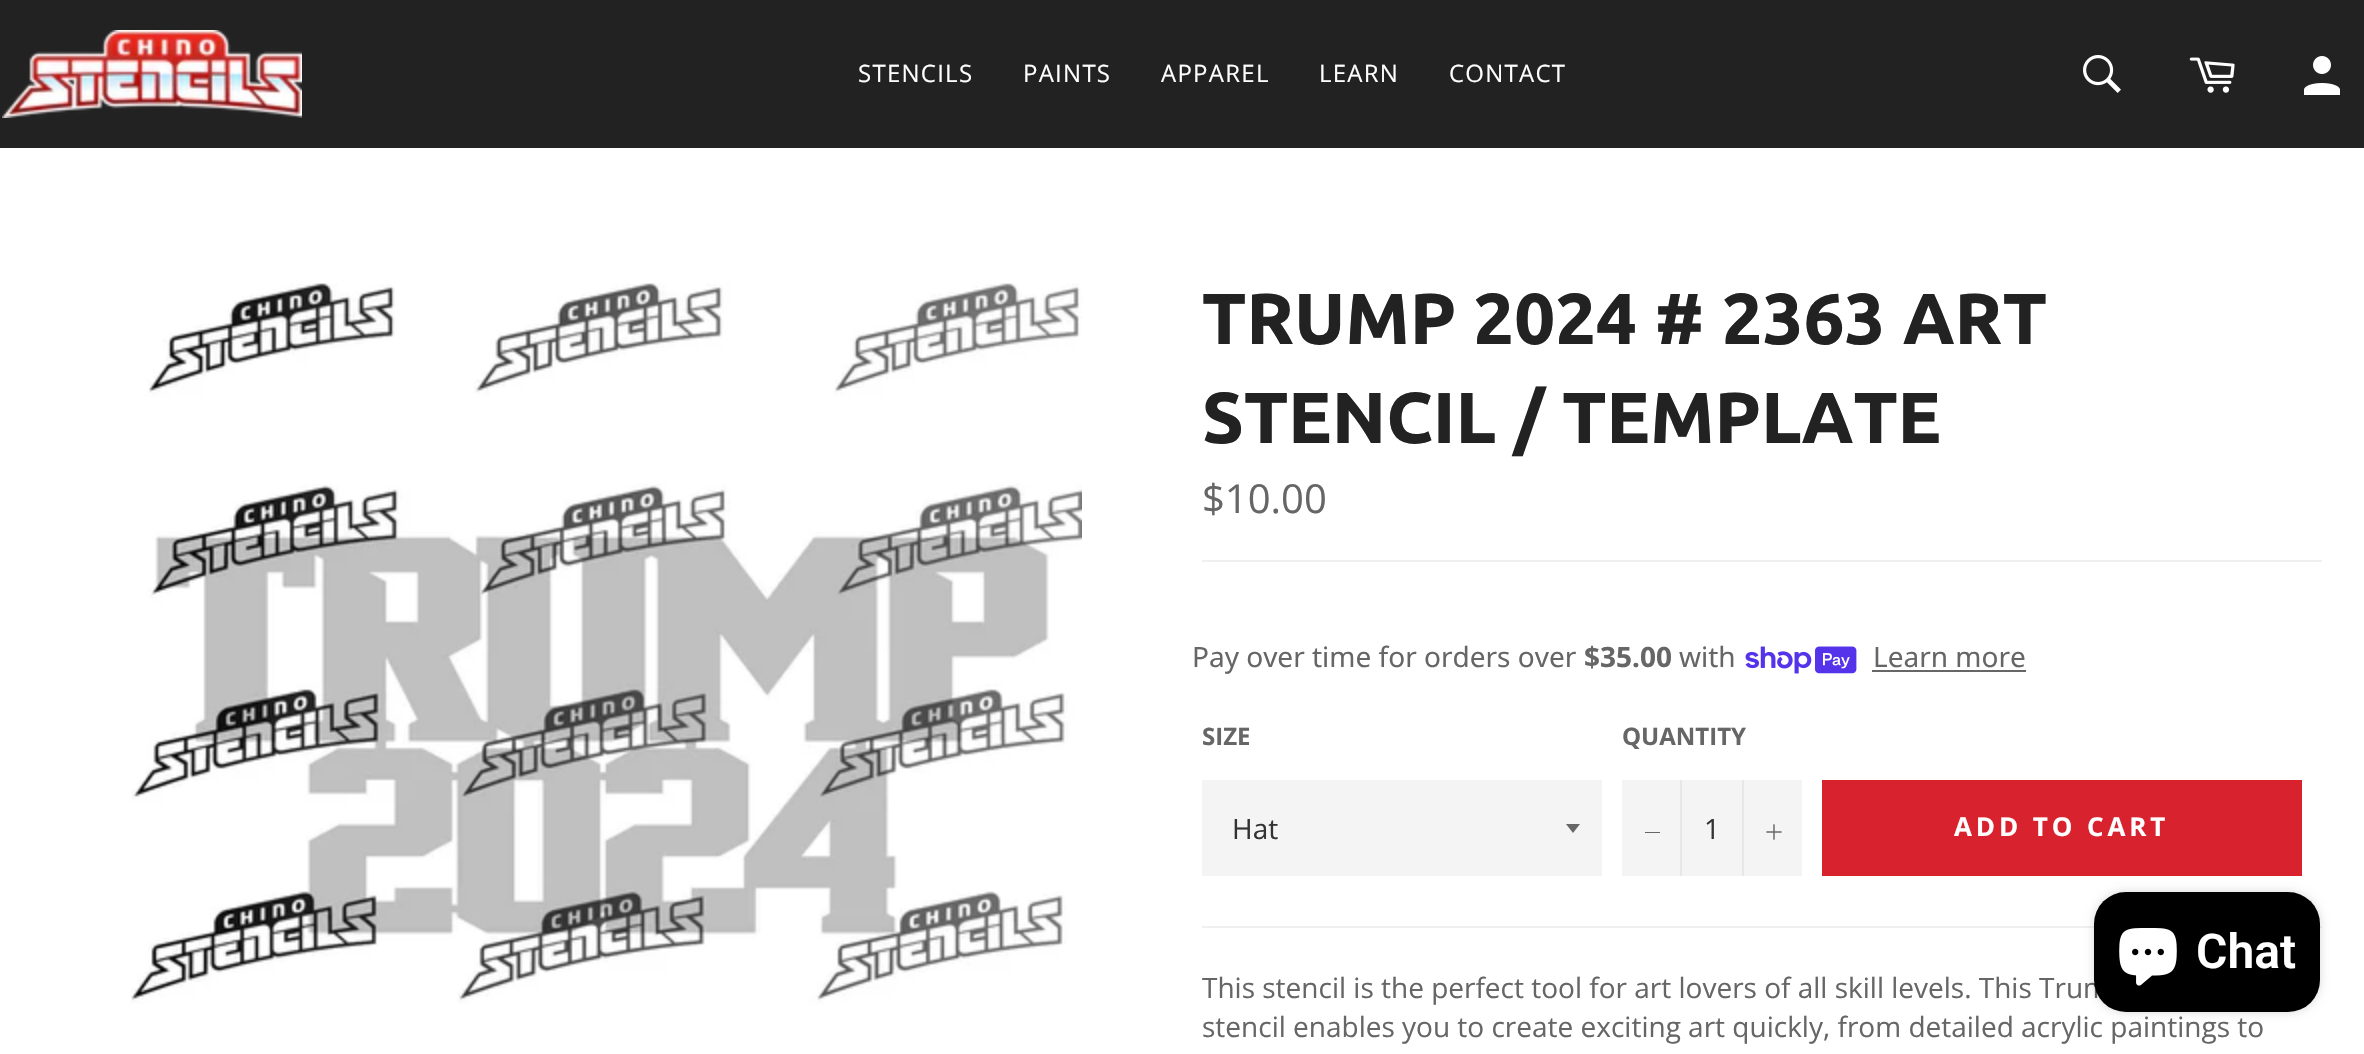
static SkFont makeFont(const char* family, int weight, float size, bool italic = false) {
  SkFontStyle style(weight, SkFontStyle::kNormal_Width,
    italic ? SkFontStyle::kItalic_Slant : SkFontStyle::kUpright_Slant);
  SkFont result(fontMgr->matchFamilyStyle(family, style), size);
  result.setSubpixel(true);
  return result;
}

static void text(SkCanvas* c, const char* s, float x, float y, const SkFont& font, SkColor color) {
  SkPaint ink(SkColor4f::FromColor(color));
  ink.setAntiAlias(true);
  c->drawString(s, x, y, font, ink);
}

static void spacedText(SkCanvas* c, const char* s, float x, float y, const SkFont& font, const SkPaint& ink, float letter, float word) {
  std::vector<SkGlyphID> glyphs(font.countText(s, strlen(s), SkTextEncoding::kUTF8));
  std::vector<float> xs(glyphs.size());
  font.textToGlyphs(s, strlen(s), SkTextEncoding::kUTF8, glyphs);
  font.getXPos(glyphs, xs, x);
  float extra = 0;
  for (size_t i = 0; i < glyphs.size(); i++) {
    xs[i] += extra;
    extra += letter + word * (glyphs[i] == font.unicharToGlyph(' '));
  }
  c->drawTextBlob(SkTextBlob::MakeFromPosHGlyphs(glyphs, xs, y, font), 0, 0, ink);
}

static void box(SkCanvas* c, float l, float t, float r, float b, SkColor color) {
  SkPaint ink(SkColor4f::FromColor(color));
  ink.setAntiAlias(true);
  c->drawRect(SkRect::MakeLTRB(l, t, r, b), ink);
}

static void roundBox(SkCanvas* c, float l, float t, float r, float b, float radius, SkColor color) {
  SkPaint ink(SkColor4f::FromColor(color));
  ink.setAntiAlias(true);
  c->drawRoundRect(SkRect::MakeLTRB(l, t, r, b), radius, radius, ink);
}

static void picture(SkCanvas* c, const char* path, float l, float t, float r, float b) {
  auto image = SkImages::DeferredFromEncodedData(SkData::MakeFromFileName(path));
  c->drawImageRect(image, SkRect::MakeLTRB(l, t, r, b), SkSamplingOptions());
}

void draw(SkCanvas* c) {
  SkPaint paint;
  paint.setAntiAlias(true);
  c->clear(0xff222222);
  picture(c, "img_01.png", 2, 30, 302, 118);
  SkFont face1 = makeFont("Open Sans", 400, 24);
  paint.setColor(0xffffffff);
  spacedText(c, "STENCILS", 858, 82, face1, paint, 1.25f, 0);
  spacedText(c, "PAINTS", 1023, 82, face1, paint, 1.25f, 0);
  spacedText(c, "APPAREL", 1161, 82, face1, paint, 1.25f, 0);
  spacedText(c, "LEARN", 1319, 82, face1, paint, 1.25f, 0);
  spacedText(c, "CONTACT", 1449, 82, face1, paint, 1.25f, 0);
  picture(c, "img_02.png", 2083, 55, 2121, 93);
  picture(c, "img_03.png", 2189, 57, 2235, 93);
  picture(c, "img_04.png", 2304, 56, 2340, 95);
  box(c, 0, 148, 2364, 1054, 0xffffffff);
  picture(c, "img_05.png", 130, 283, 1082, 1004);
  SkFont face2 = makeFont("Ubuntu", 700, 72);
  text(c, "TRUMP 2024 # 2363 ART", 1202, 344, face2, 0xff222222);
  text(c, "STENCIL / TEMPLATE", 1202, 443, face2, 0xff222222);
  SkFont face3 = makeFont("Open Sans", 400, 40);
  text(c, "$10.00", 1202, 513, face3, 0xff666666);
  box(c, 1202, 560, 2322, 562, 0xfff0f0f0);
  SkFont face4 = makeFont("Noto Sans", 400, 28);
  text(c, "Pay over time for orders over", 1192, 667, face4, 0xff666666);
  SkFont face5 = makeFont("Noto Sans", 700, 28);
  text(c, "$35.00", 1584, 667, face5, 0xff666666);
  text(c, "with", 1679, 667, face4, 0xff666666);
  picture(c, "img_06.png", 1745, 646, 1857, 674);
  text(c, "Learn more", 1873, 667, face4, 0xff666666);
  box(c, 1872, 670, 2026, 672, 0xff666666);
  SkFont face6 = makeFont("Open Sans", 700, 24);
  text(c, "SIZE", 1202, 745, face6, 0xff666666);
  box(c, 1202, 780, 1602, 876, 0xfff4f4f4);
  paint.setColor(0xff666666);
  c->drawPath(SkPathBuilder().moveTo(1566, 824).lineTo(1573, 833).lineTo(1580, 824).close().detach(), paint);
  SkFont face7 = makeFont("Open Sans", 400, 28);
  text(c, "Hat", 1232, 839, face7, 0xff333333);
  text(c, "QUANTITY", 1622, 745, face6, 0xff666666);
  box(c, 1622, 780, 1802, 876, 0xfff4f4f4);
  box(c, 1680, 780, 1682, 876, 0xffe7e7e7);
  box(c, 1645, 832, 1660, 833, 0xff666666);
  text(c, "1", 1704, 839, face7, 0xff333333);
  box(c, 1742, 780, 1744, 876, 0xffe7e7e7);
  picture(c, "img_07.png", 1766, 824, 1782, 840);
  box(c, 1822, 780, 2302, 876, 0xffd8232f);
  SkFont face8 = makeFont("Open Sans", 700, 26);
  paint.setColor(0xffffffff);
  spacedText(c, "ADD TO CART", 1954, 836, face8, paint, 3.9f, 0);
  box(c, 1202, 926, 2322, 928, 0xfff0f0f0);
  text(c, "This stencil is the perfect tool for art lovers of all skill levels. This Trum", 1202, 998, face7, 0xff666666);
  text(c, "stencil enables you to create exciting art quickly, from detailed acrylic paintings to", 1202, 1037, face7, 0xff666666);
  paint.setColor(0x26000000);
  paint.setMaskFilter(SkMaskFilter::MakeBlur(kNormal_SkBlurStyle, 5));
  c->drawRoundRect(SkRect::MakeLTRB(2094, 892, 2320, 1012), 32, 32, paint);
  paint.setMaskFilter(nullptr);
  roundBox(c, 2094, 892, 2320, 1012, 32, 0xff000000);
  picture(c, "img_08.png", 2119, 928, 2177, 986);
  SkFont face9 = makeFont("Roboto", 600, 48);
  text(c, "Chat", 2196, 968, face9, 0xffffffff);
}
